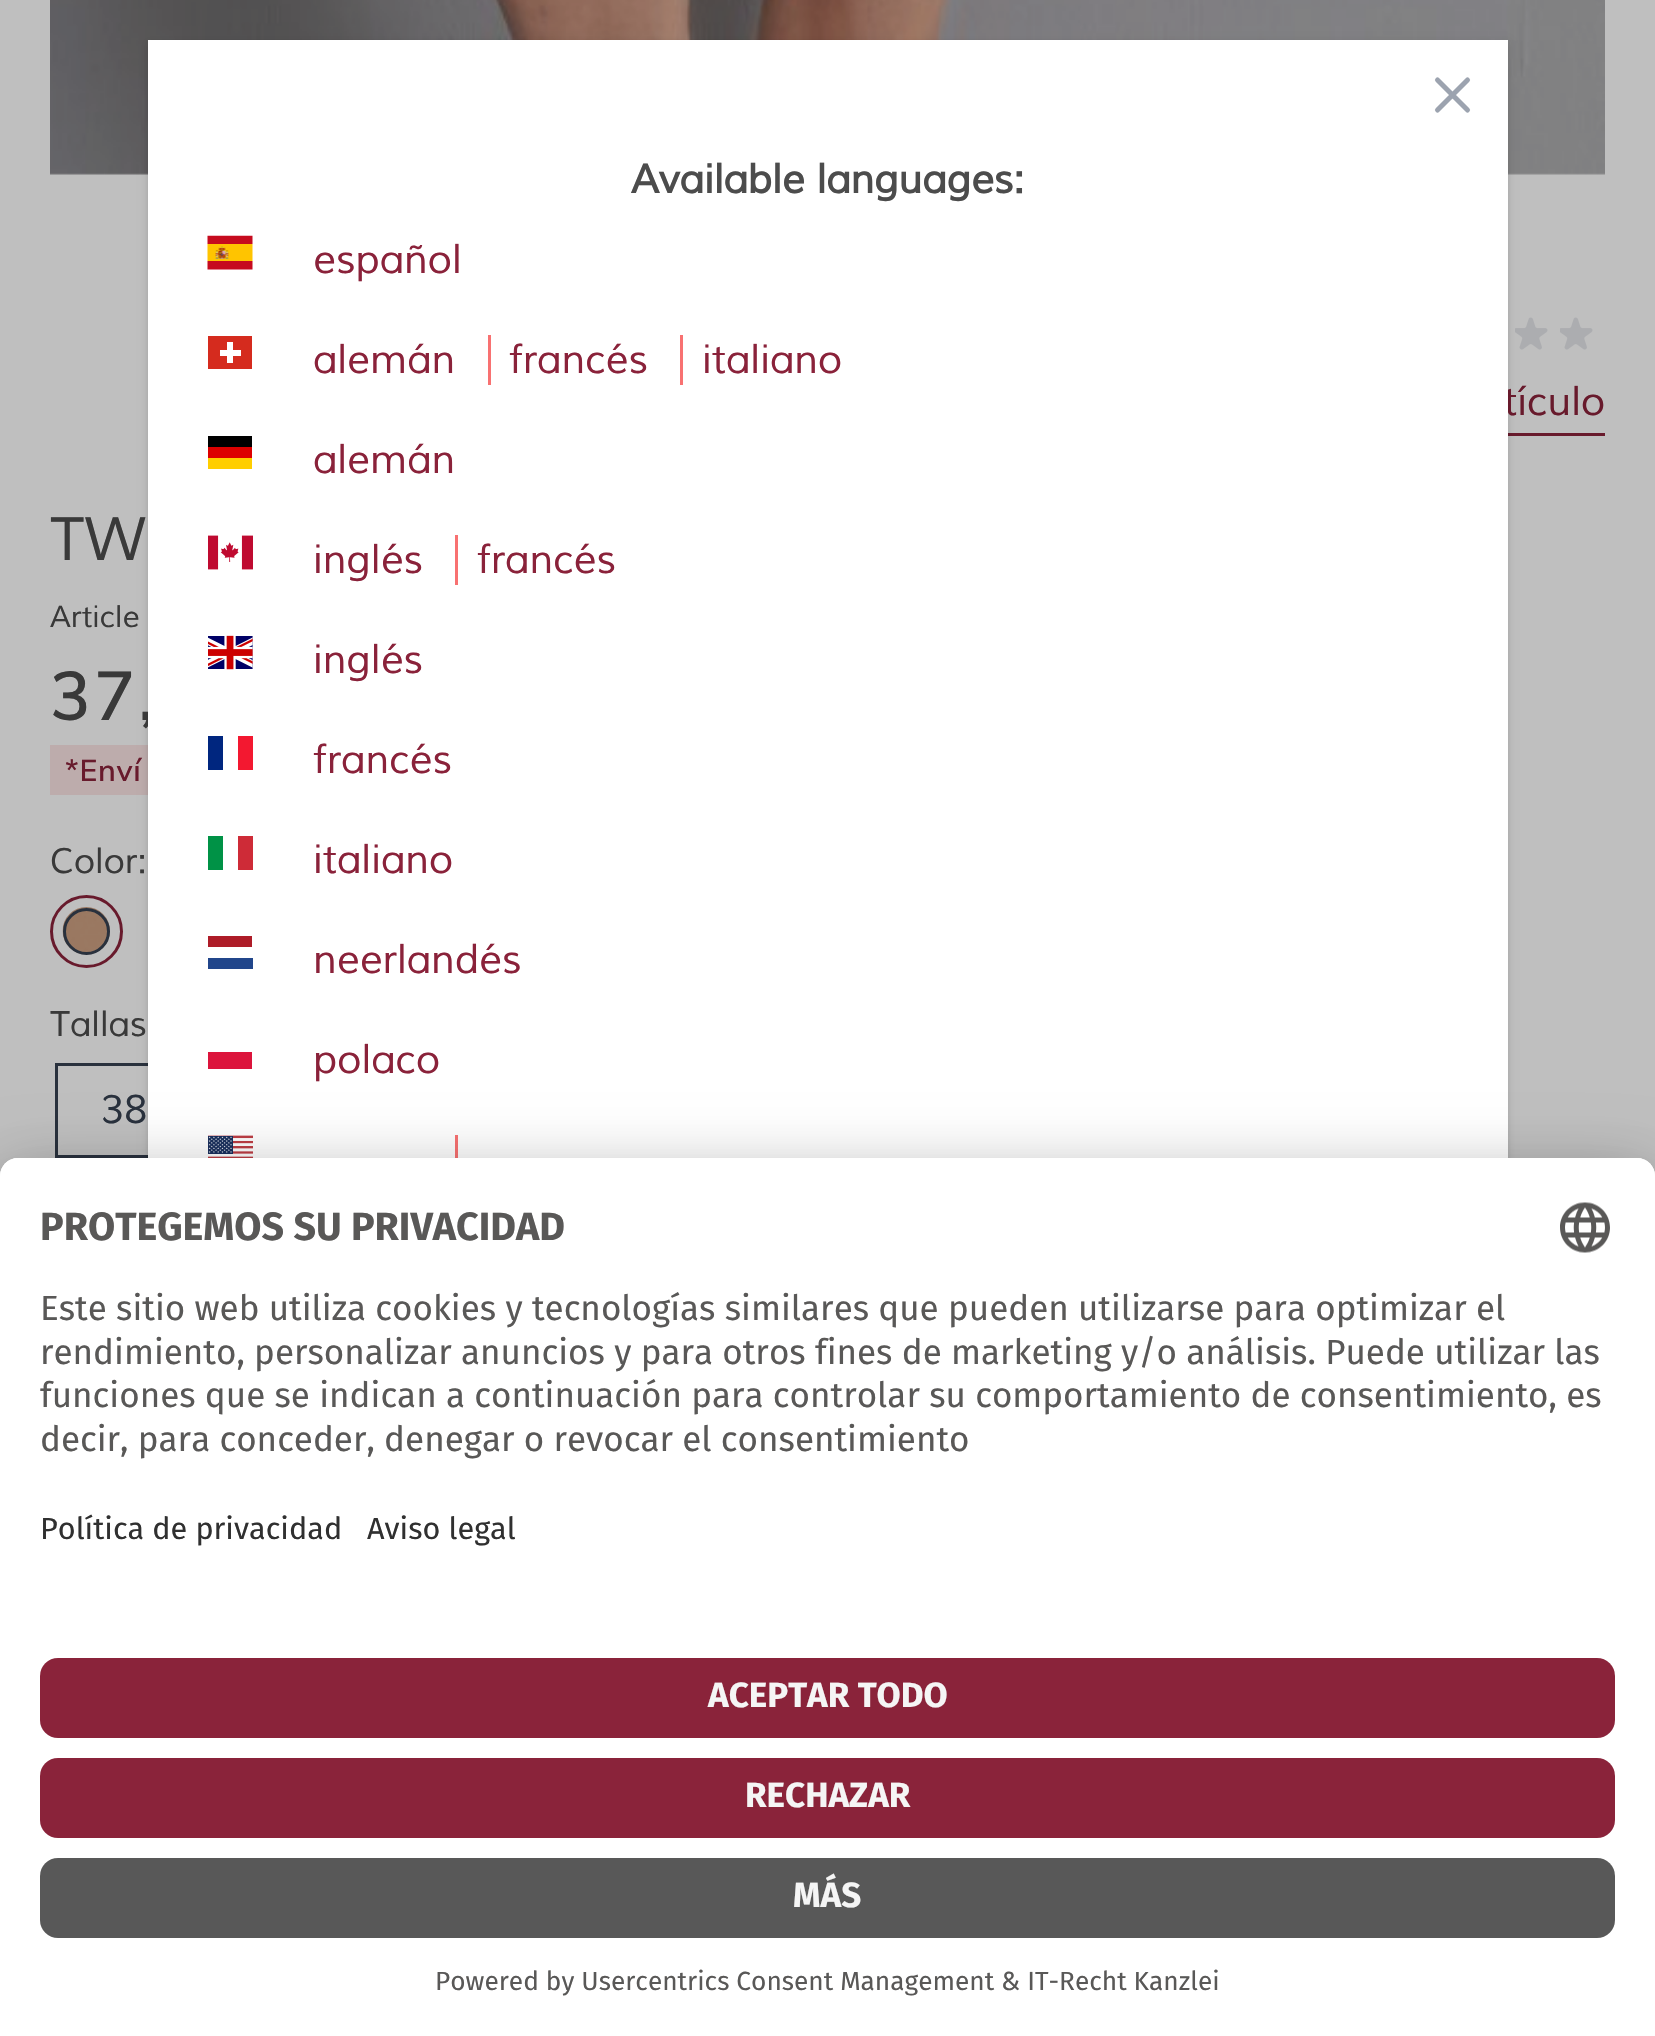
static SkFont makeFont(const char* family, int weight, float size, bool italic = false) {
  SkFontStyle style(weight, SkFontStyle::kNormal_Width,
    italic ? SkFontStyle::kItalic_Slant : SkFontStyle::kUpright_Slant);
  SkFont result(fontMgr->matchFamilyStyle(family, style), size);
  result.setSubpixel(true);
  return result;
}

static void text(SkCanvas* c, const char* s, float x, float y, const SkFont& font, SkColor color) {
  SkPaint ink(SkColor4f::FromColor(color));
  ink.setAntiAlias(true);
  c->drawString(s, x, y, font, ink);
}

static void spacedText(SkCanvas* c, const char* s, float x, float y, const SkFont& font, const SkPaint& ink, float letter, float word) {
  std::vector<SkGlyphID> glyphs(font.countText(s, strlen(s), SkTextEncoding::kUTF8));
  std::vector<float> xs(glyphs.size());
  font.textToGlyphs(s, strlen(s), SkTextEncoding::kUTF8, glyphs);
  font.getXPos(glyphs, xs, x);
  float extra = 0;
  for (size_t i = 0; i < glyphs.size(); i++) {
    xs[i] += extra;
    extra += letter + word * (glyphs[i] == font.unicharToGlyph(' '));
  }
  c->drawTextBlob(SkTextBlob::MakeFromPosHGlyphs(glyphs, xs, y, font), 0, 0, ink);
}

static void box(SkCanvas* c, float l, float t, float r, float b, SkColor color) {
  SkPaint ink(SkColor4f::FromColor(color));
  ink.setAntiAlias(true);
  c->drawRect(SkRect::MakeLTRB(l, t, r, b), ink);
}

static void roundBox(SkCanvas* c, float l, float t, float r, float b, float radius, SkColor color) {
  SkPaint ink(SkColor4f::FromColor(color));
  ink.setAntiAlias(true);
  c->drawRoundRect(SkRect::MakeLTRB(l, t, r, b), radius, radius, ink);
}

static void picture(SkCanvas* c, const char* path, float l, float t, float r, float b) {
  auto image = SkImages::DeferredFromEncodedData(SkData::MakeFromFileName(path));
  c->drawImageRect(image, SkRect::MakeLTRB(l, t, r, b), SkSamplingOptions());
}

void draw(SkCanvas* c) {
  SkPaint paint;
  paint.setAntiAlias(true);
  c->clear(0xffbfbfbf);
  picture(c, "img_05.png", 50, 0, 1605, 175);
  picture(c, "img_06.png", 1515, 317, 1548, 350);
  box(c, 1508, 433, 1605, 436, 0xff681a2c);
  box(c, 50, 745, 148, 795, 0xffbdacac);
  paint.setStyle(SkPaint::kStroke_Style);
  paint.setStrokeWidth(3);
  paint.setColor(0xff29313d);
  c->drawRect(SkRect::MakeLTRB(56.5f, 1064.5f, 191.5f, 1156.5f), paint);
  paint.setStyle(SkPaint::kFill_Style);
  paint.setColor(0x0f000000);
  paint.setMaskFilter(SkMaskFilter::MakeBlur(kNormal_SkBlurStyle, 2.5f));
  c->drawRect(SkRect::MakeLTRB(148, 43, 1508, 1413), paint);
  paint.setMaskFilter(nullptr);
  paint.setColor(0x1a000000);
  paint.setMaskFilter(SkMaskFilter::MakeBlur(kNormal_SkBlurStyle, 4));
  c->drawRect(SkRect::MakeLTRB(148, 43, 1508, 1413), paint);
  paint.setMaskFilter(nullptr);
  SkFont face1 = makeFont("Muli", 400, 40, true);
  text(c, "tículo", 1503, 415, face1, 0xff681a2c);
  SkFont face2 = makeFont("Muli", 600, 68);
  paint.setColor(0xff393939);
  spacedText(c, "37,", 50, 720, face2, paint, 3.5f, 0);
  box(c, 148, 40, 1508, 1158, 0xffffffff);
  paint.setStyle(SkPaint::kStroke_Style);
  paint.setStrokeWidth(5);
  paint.setStrokeCap(SkPaint::kRound_Cap);
  paint.setStrokeJoin(SkPaint::kRound_Join);
  paint.setColor(0xff9ca3af);
  c->drawPath(SkPathBuilder().moveTo(1437.5f, 110).lineTo(1467.5f, 80).moveTo(1437.5f, 80).lineTo(1467.5f, 110).detach(), paint);
  SkFont face3 = makeFont("Muli", 700, 40, true);
  text(c, "Available languages:", 631, 193, face3, 0xff4c4c4c);
  picture(c, "img_01.png", 207, 235, 253, 270);
  text(c, "español", 313, 273, face1, 0xff8a223a);
  box(c, 208, 336, 252, 369, 0xffd52b1e);
  box(c, 220, 350, 241, 356, 0xffffffff);
  box(c, 227, 342, 233, 363, 0xffffffff);
  text(c, "alemán", 313, 373, face1, 0xff8a223a);
  box(c, 488, 335, 491, 385, 0xfff87171);
  text(c, "francés", 509, 373, face1, 0xff8a223a);
  box(c, 680, 335, 683, 385, 0xfff87171);
  text(c, "italiano", 702, 373, face1, 0xff8a223a);
  box(c, 208, 458, 252, 469, 0xffffce00);
  box(c, 208, 436, 252, 447, 0xff000000);
  box(c, 208, 447, 252, 458, 0xffdd0000);
  text(c, "alemán", 313, 473, face1, 0xff8a223a);
  picture(c, "img_02.png", 208, 535, 253, 570);
  text(c, "inglés", 313, 573, face1, 0xff8a223a);
  box(c, 455, 535, 458, 585, 0xfff87171);
  text(c, "francés", 477, 573, face1, 0xff8a223a);
  picture(c, "img_03.png", 208, 635, 253, 670);
  text(c, "inglés", 313, 673, face1, 0xff8a223a);
  box(c, 208, 736, 223, 770, 0xff00267f);
  box(c, 238, 736, 253, 770, 0xfff31830);
  text(c, "francés", 313, 773, face1, 0xff8a223a);
  box(c, 208, 836, 223, 870, 0xff009246);
  box(c, 238, 836, 253, 870, 0xffce2b37);
  text(c, "italiano", 313, 873, face1, 0xff8a223a);
  box(c, 208, 958, 253, 969, 0xff21468b);
  box(c, 208, 936, 252, 947, 0xffae1c28);
  text(c, "neerlandés", 313, 973, face1, 0xff8a223a);
  box(c, 208, 1052, 252, 1069, 0xffdc143c);
  text(c, "polaco", 313, 1073, face1, 0xff8a223a);
  picture(c, "img_04.png", 208, 1135, 253, 1158);
  box(c, 455, 1135, 458, 1158, 0xfff87171);
  picture(c, "img_06.png", 1560, 317, 1593, 350);
  SkFont face4 = makeFont("Muli", 400, 60, true);
  text(c, "TW", 50, 560, face4, 0xff393939);
  SkFont face5 = makeFont("Muli", 400, 30, true);
  text(c, "Article", 50, 627, face5, 0xff393939);
  SkFont face6 = makeFont("Muli", 600, 30);
  paint.setStyle(SkPaint::kFill_Style);
  paint.setColor(0xff681a2c);
  spacedText(c, "*Enví", 65, 781, face6, paint, 0.75f, 0);
  SkFont face7 = makeFont("Muli", 400, 35, true);
  text(c, "Color:", 50, 873, face7, 0xff393939);
  paint.setStyle(SkPaint::kStroke_Style);
  paint.setStrokeWidth(3);
  paint.setStrokeCap(SkPaint::kButt_Cap);
  paint.setStrokeJoin(SkPaint::kMiter_Join);
  c->drawCircle(86.5f, 931.5f, 35, paint);
  picture(c, "img_07.png", 62, 907, 110, 955);
  paint.setColor(0xff29313d);
  c->drawCircle(86.5f, 931.5f, 22, paint);
  text(c, "Tallas", 50, 1036, face7, 0xff393939);
  text(c, "38", 101, 1123, face1, 0xff29313d);
  paint.setStyle(SkPaint::kFill_Style);
  paint.setColor(0x4d000000);
  paint.setMaskFilter(SkMaskFilter::MakeBlur(kNormal_SkBlurStyle, 35));
  c->drawRoundRect(SkRect::MakeLTRB(0, 1208, 1655, 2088), 18, 18, paint);
  paint.setMaskFilter(nullptr);
  paint.setColor(0x38000000);
  paint.setMaskFilter(SkMaskFilter::MakeBlur(kNormal_SkBlurStyle, 32.5f));
  c->drawRoundRect(SkRect::MakeLTRB(0, 1170, 1655, 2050), 18, 18, paint);
  paint.setMaskFilter(nullptr);
  paint.setColor(0xffffffff);
  c->drawPath(SkPathBuilder().moveTo(18, 1158).lineTo(1637, 1158).cubicTo(1647, 1158, 1655, 1166, 1655, 1176).lineTo(1655, 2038).lineTo(0, 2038).lineTo(0, 1176).cubicTo(0, 1166, 8, 1158, 18, 1158).close().detach(), paint);
  c->drawPath(SkPathBuilder().moveTo(18, 1158).lineTo(1637, 1158).cubicTo(1647, 1158, 1655, 1166, 1655, 1176).lineTo(1655, 1628).lineTo(0, 1628).lineTo(0, 1176).cubicTo(0, 1166, 8, 1158, 18, 1158).close().detach(), paint);
  SkFont face8 = makeFont("Fira Sans", 700, 39.4f);
  text(c, "PROTEGEMOS SU PRIVACIDAD", 40, 1240, face8, 0xff595857);
  picture(c, "img_08.png", 1560, 1202, 1610, 1253);
  SkFont face9 = makeFont("Fira Sans", 400, 35);
  text(c, "Este sitio web utiliza cookies y tecnologías similares que pueden utilizarse para optimizar el", 40, 1320, face9, 0xff595857);
  text(c, "rendimiento, personalizar anuncios y para otros fines de marketing y/o análisis. Puede utilizar las", 40, 1364, face9, 0xff595857);
  text(c, "funciones que se indican a continuación para controlar su comportamiento de consentimiento, es", 40, 1407, face9, 0xff595857);
  text(c, "decir, para conceder, denegar o revocar el consentimiento", 40, 1451, face9, 0xff595857);
  SkFont face10 = makeFont("Fira Sans", 400, 30.6f);
  text(c, "Política de privacidad", 40, 1539, face10, 0xff303030);
  text(c, "Aviso legal", 367, 1539, face10, 0xff303030);
  roundBox(c, 40, 1658, 1615, 1738, 18, 0xff8a233a);
  SkFont face11 = makeFont("Fira Sans", 700, 35);
  text(c, "ACEPTAR TODO", 708, 1707, face11, 0xfff5f5f5);
  roundBox(c, 40, 1758, 1615, 1838, 18, 0xff8a233a);
  text(c, "RECHAZAR", 745, 1807, face11, 0xfff5f5f5);
  roundBox(c, 40, 1858, 1615, 1938, 18, 0xff585858);
  text(c, "MÁS", 793, 1907, face11, 0xfff5f5f5);
  SkFont face12 = makeFont("Fira Sans", 400, 26.25f);
  text(c, "Powered by Usercentrics Consent Management & IT-Recht Kanzlei", 435, 1990, face12, 0xff595857);
}
